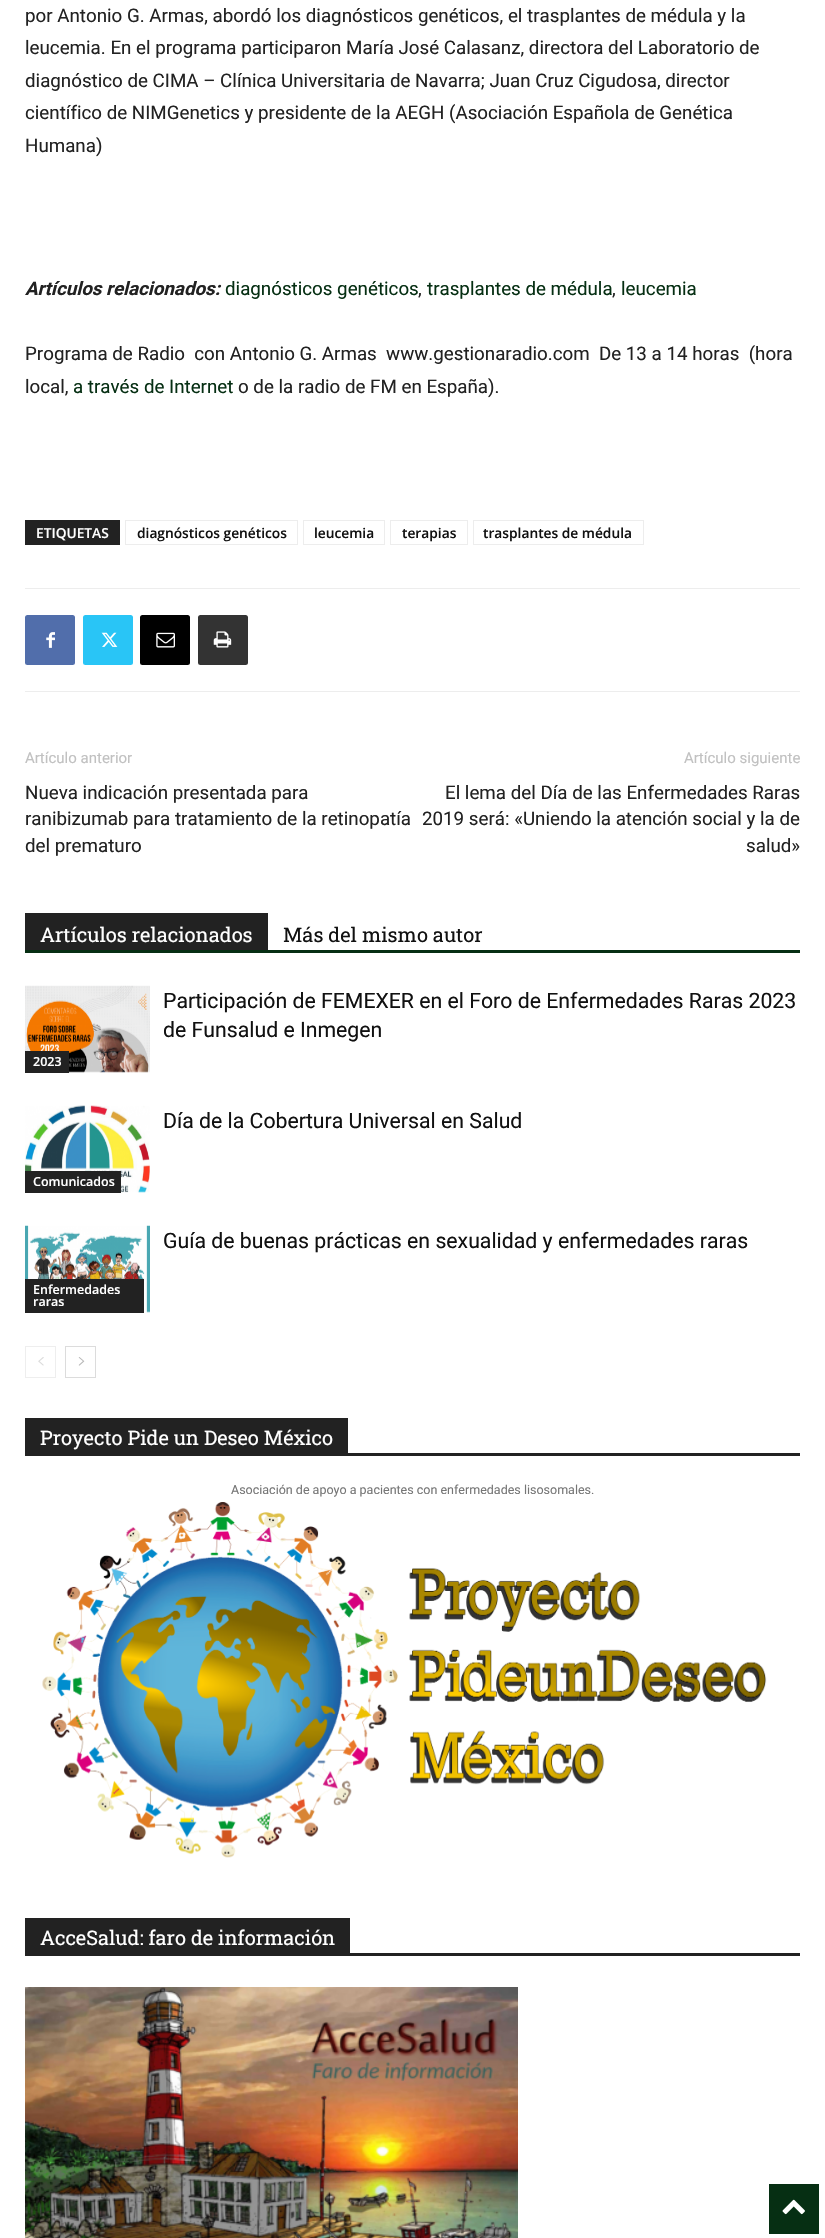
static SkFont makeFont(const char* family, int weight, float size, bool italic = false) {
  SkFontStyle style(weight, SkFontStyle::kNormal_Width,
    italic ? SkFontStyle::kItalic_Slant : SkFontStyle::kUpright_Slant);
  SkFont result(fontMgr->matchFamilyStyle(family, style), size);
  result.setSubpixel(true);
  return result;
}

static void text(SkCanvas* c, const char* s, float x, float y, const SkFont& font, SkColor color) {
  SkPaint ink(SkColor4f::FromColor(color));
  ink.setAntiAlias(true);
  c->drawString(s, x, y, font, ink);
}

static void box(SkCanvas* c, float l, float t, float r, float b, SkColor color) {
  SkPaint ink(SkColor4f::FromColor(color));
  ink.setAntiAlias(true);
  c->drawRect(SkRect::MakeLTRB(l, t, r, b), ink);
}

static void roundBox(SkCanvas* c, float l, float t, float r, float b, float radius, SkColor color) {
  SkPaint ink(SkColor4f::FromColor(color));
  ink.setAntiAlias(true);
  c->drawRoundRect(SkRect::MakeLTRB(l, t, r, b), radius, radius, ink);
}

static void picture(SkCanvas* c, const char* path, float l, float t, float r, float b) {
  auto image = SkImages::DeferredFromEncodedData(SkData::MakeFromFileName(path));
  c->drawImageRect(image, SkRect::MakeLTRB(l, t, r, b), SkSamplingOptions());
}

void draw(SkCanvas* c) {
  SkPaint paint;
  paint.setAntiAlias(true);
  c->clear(0xffffffff);
  SkFont face1 = makeFont("Roboto", 400, 18.75f);
  text(c, "por Antonio G. Armas, abordó los diagnósticos genéticos, el trasplantes de médula y la", 25, 22, face1, 0xff222222);
  text(c, "leucemia. En el programa participaron María José Calasanz, directora del Laboratorio de", 25, 54, face1, 0xff222222);
  text(c, "diagnóstico de CIMA – Clínica Universitaria de Navarra; Juan Cruz Cigudosa, director", 25, 87, face1, 0xff222222);
  text(c, "científico de NIMGenetics y presidente de la AEGH (Asociación Española de Genética", 25, 119, face1, 0xff222222);
  text(c, "Humana)", 25, 152, face1, 0xff222222);
  SkFont face2 = makeFont("Roboto", 700, 18.75f, true);
  text(c, "Artículos relacionados:", 25, 295, face2, 0xff222222);
  text(c, "diagnósticos genéticos", 225, 295, face1, 0xff062f13);
  text(c, ",", 418, 295, face1, 0xff222222);
  text(c, "trasplantes de médula", 427, 295, face1, 0xff062f13);
  text(c, ",", 612, 295, face1, 0xff222222);
  text(c, "leucemia", 621, 295, face1, 0xff062f13);
  text(c, "Programa de Radio  con Antonio G. Armas  www.gestionaradio.com  De 13 a 14 horas  (hora", 25, 360, face1, 0xff222222);
  text(c, "local,", 25, 393, face1, 0xff222222);
  text(c, "a través de Internet", 73, 393, face1, 0xff062f13);
  text(c, "o de la radio de FM en España).", 238, 393, face1, 0xff222222);
  box(c, 25, 520, 120, 545, 0xff222222);
  SkFont face3 = makeFont("Open Sans", 600, 13.75f);
  text(c, "ETIQUETAS", 36, 538, face3, 0xffffffff);
  paint.setStyle(SkPaint::kStroke_Style);
  paint.setStrokeWidth(1);
  paint.setColor(0xffededed);
  c->drawRect(SkRect::MakeLTRB(125.5f, 520.5f, 297.5f, 544.5f), paint);
  text(c, "diagnósticos genéticos", 137, 538, face3, 0xff111111);
  c->drawRect(SkRect::MakeLTRB(303.5f, 520.5f, 384.5f, 544.5f), paint);
  text(c, "leucemia", 314, 538, face3, 0xff111111);
  c->drawRect(SkRect::MakeLTRB(390.5f, 520.5f, 467.5f, 544.5f), paint);
  text(c, "terapias", 402, 538, face3, 0xff111111);
  c->drawRect(SkRect::MakeLTRB(473.5f, 520.5f, 643.5f, 544.5f), paint);
  text(c, "trasplantes de médula", 483, 538, face3, 0xff111111);
  box(c, 25, 588, 800, 589, 0xffededed);
  box(c, 25, 691, 800, 692, 0xffededed);
  roundBox(c, 25, 615, 75, 665, 2.5f, 0xff516eab);
  picture(c, "img_01.png", 46, 632, 55, 648);
  roundBox(c, 83, 615, 133, 665, 2.5f, 0xff29c5f6);
  picture(c, "img_02.png", 101, 632, 118, 647);
  roundBox(c, 140, 615, 190, 665, 2.5f, 0xff000000);
  picture(c, "img_03.png", 156, 632, 175, 648);
  roundBox(c, 198, 615, 248, 665, 2.5f, 0xff333333);
  picture(c, "img_04.png", 213, 631, 232, 648);
  SkFont face4 = makeFont("Roboto", 400, 15);
  text(c, "Artículo anterior", 25, 763, face4, 0xffc1c1c1);
  text(c, "Nueva indicación presentada para", 25, 799, face1, 0xff222222);
  text(c, "ranibizumab para tratamiento de la retinopatía", 25, 825, face1, 0xff222222);
  text(c, "del prematuro", 25, 852, face1, 0xff222222);
  text(c, "Artículo siguiente", 684, 763, face4, 0xffc1c1c1);
  text(c, "El lema del Día de las Enfermedades Raras", 445, 799, face1, 0xff222222);
  text(c, "2019 será: «Uniendo la atención social y la de", 422, 825, face1, 0xff222222);
  text(c, "salud»", 746, 852, face1, 0xff222222);
  box(c, 25, 950, 800, 953, 0xff062f13);
  box(c, 25, 913, 268, 950, 0xff222222);
  SkFont face5 = makeFont("Roboto Slab", 400, 20);
  text(c, "Artículos relacionados", 40, 942, face5, 0xffffffff);
  text(c, "Más del mismo autor", 283, 942, face5, 0xff111111);
  SkFont face6 = makeFont("Roboto", 400, 21.25f);
  text(c, "Participación de FEMEXER en el Foro de Enfermedades Raras 2023", 163, 1008, face6, 0xff111111);
  text(c, "de Funsalud e Inmegen", 163, 1037, face6, 0xff111111);
  picture(c, "img_05.png", 25, 985, 150, 1073);
  box(c, 25, 1051, 69, 1073, 0xff222222);
  SkFont face7 = makeFont("Open Sans", 600, 12.5f);
  text(c, "2023", 33, 1066, face7, 0xffffffff);
  text(c, "Día de la Cobertura Universal en Salud", 163, 1128, face6, 0xff111111);
  picture(c, "img_06.png", 25, 1105, 150, 1193);
  box(c, 25, 1171, 121, 1193, 0xff222222);
  text(c, "Comunicados", 33, 1186, face7, 0xffffffff);
  text(c, "Guía de buenas prácticas en sexualidad y enfermedades raras", 163, 1248, face6, 0xff111111);
  picture(c, "img_07.png", 25, 1225, 150, 1313);
  box(c, 25, 1279, 144, 1313, 0xff222222);
  text(c, "Enfermedades", 33, 1294, face7, 0xffffffff);
  text(c, "raras", 33, 1306, face7, 0xffffffff);
  paint.setColor(0xffeeeeee);
  c->drawRect(SkRect::MakeLTRB(25.5f, 1346.5f, 55.5f, 1377.5f), paint);
  picture(c, "img_08.png", 38, 1357, 44, 1366);
  paint.setColor(0xffdcdcdc);
  c->drawRect(SkRect::MakeLTRB(65.5f, 1346.5f, 95.5f, 1377.5f), paint);
  picture(c, "img_09.png", 78, 1357, 85, 1366);
  box(c, 25, 1453, 800, 1456, 0xff222222);
  box(c, 25, 1418, 348, 1453, 0xff222222);
  text(c, "Proyecto Pide un Deseo México", 40, 1445, face5, 0xffffffff);
  SkFont face8 = makeFont("Roboto", 400, 12.5f);
  text(c, "Asociación de apoyo a pacientes con enfermedades lisosomales.", 231, 1494, face8, 0xff767676);
  picture(c, "img_10.png", 42, 1502, 767, 1858);
  box(c, 25, 1953, 800, 1956, 0xff222222);
  box(c, 25, 1918, 350, 1953, 0xff222222);
  text(c, "AcceSalud: faro de información", 40, 1945, face5, 0xffffffff);
  picture(c, "img_11.png", 25, 1987, 518, 2238);
  box(c, 769, 2184, 819, 2234, 0xff062f13);
  picture(c, "img_12.png", 782, 2199, 805, 2215);
}
